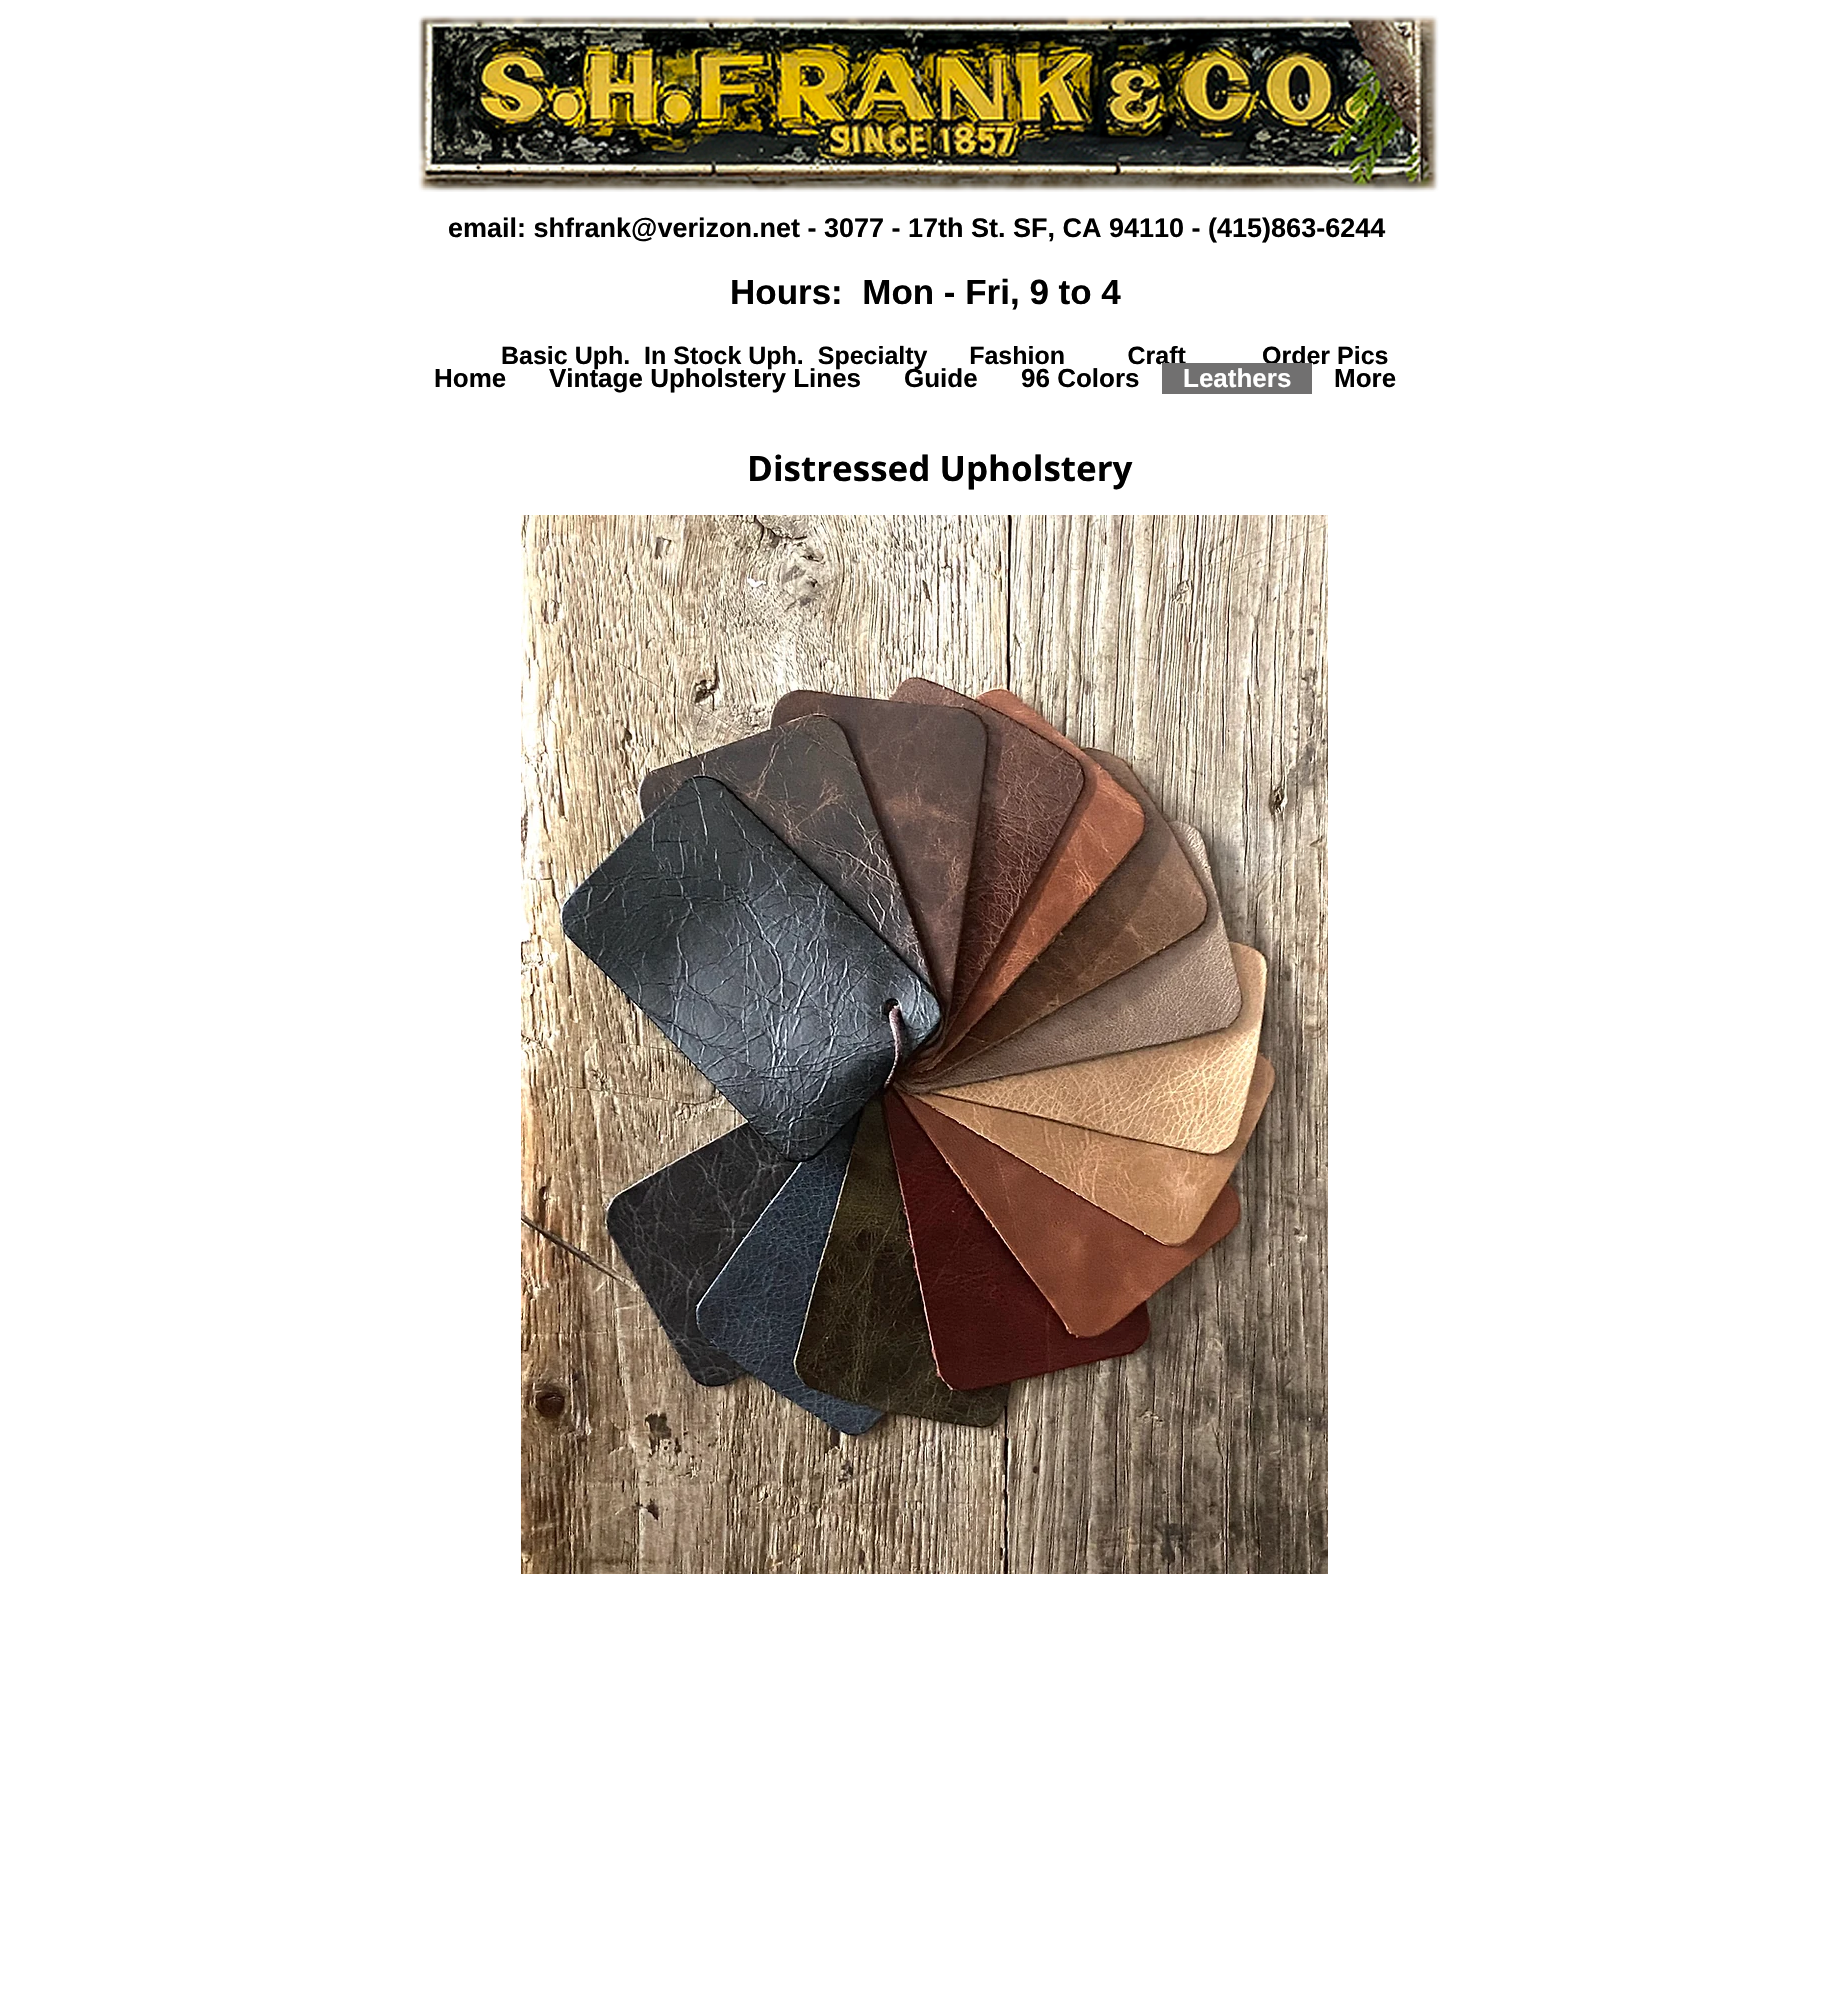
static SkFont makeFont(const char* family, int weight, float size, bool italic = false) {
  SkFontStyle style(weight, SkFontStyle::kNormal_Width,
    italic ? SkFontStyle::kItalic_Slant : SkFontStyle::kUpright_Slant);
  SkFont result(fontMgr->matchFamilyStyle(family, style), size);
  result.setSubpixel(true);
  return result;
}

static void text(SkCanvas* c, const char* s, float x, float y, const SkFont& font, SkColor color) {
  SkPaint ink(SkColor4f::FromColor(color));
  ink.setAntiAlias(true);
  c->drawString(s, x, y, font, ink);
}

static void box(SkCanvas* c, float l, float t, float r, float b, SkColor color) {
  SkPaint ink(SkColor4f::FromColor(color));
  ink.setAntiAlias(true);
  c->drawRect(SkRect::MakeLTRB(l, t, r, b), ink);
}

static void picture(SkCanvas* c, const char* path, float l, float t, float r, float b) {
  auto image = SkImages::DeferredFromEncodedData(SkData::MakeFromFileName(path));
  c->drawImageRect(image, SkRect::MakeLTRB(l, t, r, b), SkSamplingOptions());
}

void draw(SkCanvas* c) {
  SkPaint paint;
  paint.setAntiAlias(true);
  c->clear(0xffffffff);
  picture(c, "img_01.png", 418, 15, 1439, 192);
  SkFont face1 = makeFont("Liberation Sans", 700, 27);
  text(c, "email: shfrank@verizon.net - 3077 - 17th St. SF, CA 94110 - (415)863-6244", 448, 237, face1, 0xff000000);
  SkFont face2 = makeFont("Liberation Sans", 700, 35);
  text(c, "Hours:  Mon - Fri, 9 to 4", 730, 304, face2, 0xff000000);
  SkFont face3 = makeFont("Liberation Sans", 700, 25);
  text(c, "Basic Uph.  In Stock Uph.  Specialty      Fashion         Craft", 501, 364, face3, 0xff000000);
  text(c, "Order Pics", 1262, 364, face3, 0xff000000);
  SkFont face4 = makeFont("Liberation Sans", 700, 26);
  text(c, "Home", 434, 387, face4, 0xff000000);
  text(c, "Vintage Upholstery Lines", 549, 387, face4, 0xff000000);
  box(c, 882, 363, 883, 364, 0xffffffff);
  text(c, "Guide", 904, 387, face4, 0xff000000);
  text(c, "96 Colors", 1021, 387, face4, 0xff000000);
  box(c, 1162, 363, 1312, 394, 0xff717070);
  box(c, 1161, 363, 1162, 364, 0xffffffff);
  text(c, "Leathers", 1183, 387, face4, 0xffffffff);
  box(c, 1312, 363, 1313, 365, 0xffffffff);
  text(c, "More", 1334, 387, face4, 0xff000000);
  SkFont face5 = makeFont("Open Sans", 700, 35);
  text(c, "Distressed Upholstery", 747, 481, face5, 0xff000000);
  picture(c, "img_02.png", 521, 515, 1328, 1574);
}
